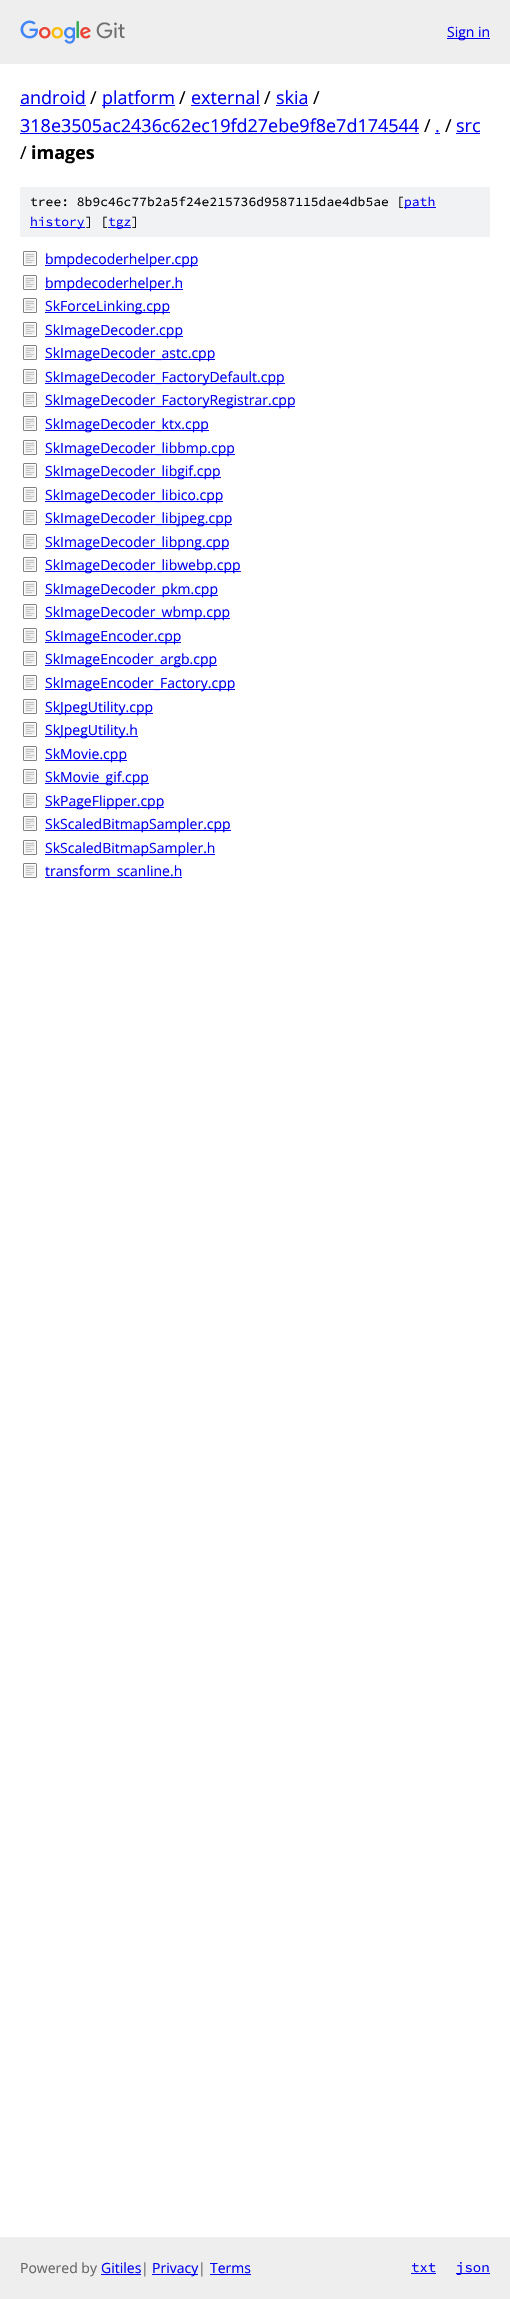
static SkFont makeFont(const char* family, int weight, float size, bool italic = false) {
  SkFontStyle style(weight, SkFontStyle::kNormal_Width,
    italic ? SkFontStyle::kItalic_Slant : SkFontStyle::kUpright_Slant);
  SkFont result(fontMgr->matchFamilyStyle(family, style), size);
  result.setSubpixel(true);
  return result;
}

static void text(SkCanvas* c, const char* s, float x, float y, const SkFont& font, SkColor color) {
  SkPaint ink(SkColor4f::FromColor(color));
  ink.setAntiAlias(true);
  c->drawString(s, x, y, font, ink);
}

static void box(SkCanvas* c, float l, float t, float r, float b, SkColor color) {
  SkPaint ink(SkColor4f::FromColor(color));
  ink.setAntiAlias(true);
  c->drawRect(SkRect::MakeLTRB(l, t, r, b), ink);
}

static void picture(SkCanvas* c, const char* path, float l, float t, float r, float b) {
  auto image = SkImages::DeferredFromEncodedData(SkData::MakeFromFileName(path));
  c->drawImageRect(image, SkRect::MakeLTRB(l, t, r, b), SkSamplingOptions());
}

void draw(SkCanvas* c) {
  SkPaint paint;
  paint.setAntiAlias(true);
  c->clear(0xffffffff);
  box(c, 0, 0, 510, 64, 0xffeeeeee);
  picture(c, "img_01.png", 20, 20, 125, 44);
  box(c, 447, 38, 490, 39, 0xff0000ee);
  SkFont face1 = makeFont("Open Sans", 400, 14);
  text(c, "Sign in", 447, 37, face1, 0xff0000ee);
  SkFont face2 = makeFont("Open Sans", 400, 18);
  text(c, "android", 20, 104, face2, 0xff0000ee);
  box(c, 20, 105, 86, 106, 0xff0000ee);
  text(c, "/", 90, 104, face2, 0xff000000);
  box(c, 102, 105, 175, 106, 0xff0000ee);
  text(c, "platform", 102, 104, face2, 0xff0000ee);
  text(c, "/", 179, 104, face2, 0xff000000);
  text(c, "external", 191, 104, face2, 0xff0000ee);
  box(c, 191, 105, 260, 106, 0xff0000ee);
  text(c, "/", 264, 104, face2, 0xff000000);
  text(c, "skia", 276, 104, face2, 0xff0000ee);
  box(c, 276, 105, 308, 106, 0xff0000ee);
  text(c, "/", 313, 104, face2, 0xff000000);
  text(c, "318e3505ac2436c62ec19fd27ebe9f8e7d174544", 20, 132, face2, 0xff0000ee);
  box(c, 20, 133, 419, 134, 0xff0000ee);
  text(c, "/", 424, 132, face2, 0xff000000);
  text(c, ".", 435, 132, face2, 0xff0000ee);
  box(c, 435, 133, 440, 134, 0xff0000ee);
  text(c, "/", 445, 132, face2, 0xff000000);
  text(c, "src", 456, 132, face2, 0xff0000ee);
  box(c, 456, 133, 480, 134, 0xff0000ee);
  text(c, "/", 20, 159, face2, 0xff000000);
  SkFont face3 = makeFont("Open Sans", 700, 18);
  text(c, "images", 31, 159, face3, 0xff000000);
  box(c, 20, 187, 490, 237, 0xfff1f2f3);
  SkFont face4 = makeFont("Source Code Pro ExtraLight", 200, 13);
  text(c, "tree: 8b9c46c77b2a5f24e215736d9587115dae4db5ae [", 30, 206, face4, 0xff000000);
  box(c, 404, 207, 436, 208, 0xff0000ee);
  text(c, "path", 404, 206, face4, 0xff0000ee);
  box(c, 30, 227, 85, 228, 0xff0000ee);
  text(c, "history", 30, 226, face4, 0xff0000ee);
  text(c, "] [", 85, 226, face4, 0xff000000);
  box(c, 108, 227, 131, 228, 0xff0000ee);
  text(c, "tgz", 108, 226, face4, 0xff0000ee);
  text(c, "]", 131, 226, face4, 0xff000000);
  picture(c, "img_02.png", 23, 251, 37, 266);
  box(c, 45, 265, 198, 266, 0xff0000ee);
  text(c, "bmpdecoderhelper.cpp", 45, 264, face1, 0xff0000ee);
  picture(c, "img_02.png", 23, 275, 37, 290);
  box(c, 45, 289, 183, 290, 0xff0000ee);
  text(c, "bmpdecoderhelper.h", 45, 288, face1, 0xff0000ee);
  picture(c, "img_02.png", 23, 298, 37, 313);
  box(c, 45, 312, 170, 313, 0xff0000ee);
  text(c, "SkForceLinking.cpp", 45, 311, face1, 0xff0000ee);
  picture(c, "img_02.png", 23, 322, 37, 337);
  box(c, 45, 336, 183, 337, 0xff0000ee);
  text(c, "SkImageDecoder.cpp", 45, 335, face1, 0xff0000ee);
  picture(c, "img_02.png", 23, 345, 37, 360);
  box(c, 45, 359, 215, 360, 0xff0000ee);
  text(c, "SkImageDecoder_astc.cpp", 45, 358, face1, 0xff0000ee);
  picture(c, "img_02.png", 23, 369, 37, 384);
  box(c, 45, 383, 285, 384, 0xff0000ee);
  text(c, "SkImageDecoder_FactoryDefault.cpp", 45, 382, face1, 0xff0000ee);
  picture(c, "img_02.png", 23, 392, 37, 407);
  box(c, 45, 406, 295, 407, 0xff0000ee);
  text(c, "SkImageDecoder_FactoryRegistrar.cpp", 45, 405, face1, 0xff0000ee);
  picture(c, "img_02.png", 23, 416, 37, 431);
  box(c, 45, 430, 209, 431, 0xff0000ee);
  text(c, "SkImageDecoder_ktx.cpp", 45, 429, face1, 0xff0000ee);
  picture(c, "img_02.png", 23, 440, 37, 455);
  box(c, 45, 454, 235, 455, 0xff0000ee);
  text(c, "SkImageDecoder_libbmp.cpp", 45, 453, face1, 0xff0000ee);
  picture(c, "img_02.png", 23, 463, 37, 478);
  box(c, 45, 477, 221, 478, 0xff0000ee);
  text(c, "SkImageDecoder_libgif.cpp", 45, 476, face1, 0xff0000ee);
  picture(c, "img_02.png", 23, 487, 37, 502);
  box(c, 45, 501, 223, 502, 0xff0000ee);
  text(c, "SkImageDecoder_libico.cpp", 45, 500, face1, 0xff0000ee);
  picture(c, "img_02.png", 23, 510, 37, 525);
  box(c, 45, 524, 232, 525, 0xff0000ee);
  text(c, "SkImageDecoder_libjpeg.cpp", 45, 523, face1, 0xff0000ee);
  picture(c, "img_02.png", 23, 534, 37, 549);
  box(c, 45, 548, 229, 549, 0xff0000ee);
  text(c, "SkImageDecoder_libpng.cpp", 45, 547, face1, 0xff0000ee);
  picture(c, "img_02.png", 23, 557, 37, 572);
  box(c, 45, 571, 241, 572, 0xff0000ee);
  text(c, "SkImageDecoder_libwebp.cpp", 45, 570, face1, 0xff0000ee);
  picture(c, "img_02.png", 23, 581, 37, 596);
  box(c, 45, 595, 218, 596, 0xff0000ee);
  text(c, "SkImageDecoder_pkm.cpp", 45, 594, face1, 0xff0000ee);
  picture(c, "img_02.png", 23, 604, 37, 619);
  box(c, 45, 618, 230, 619, 0xff0000ee);
  text(c, "SkImageDecoder_wbmp.cpp", 45, 617, face1, 0xff0000ee);
  picture(c, "img_02.png", 23, 628, 37, 643);
  box(c, 45, 642, 181, 643, 0xff0000ee);
  text(c, "SkImageEncoder.cpp", 45, 641, face1, 0xff0000ee);
  picture(c, "img_02.png", 23, 651, 37, 666);
  box(c, 45, 665, 217, 666, 0xff0000ee);
  text(c, "SkImageEncoder_argb.cpp", 45, 664, face1, 0xff0000ee);
  picture(c, "img_02.png", 23, 675, 37, 690);
  box(c, 45, 689, 235, 690, 0xff0000ee);
  text(c, "SkImageEncoder_Factory.cpp", 45, 688, face1, 0xff0000ee);
  picture(c, "img_02.png", 23, 699, 37, 714);
  box(c, 45, 713, 153, 714, 0xff0000ee);
  text(c, "SkJpegUtility.cpp", 45, 712, face1, 0xff0000ee);
  picture(c, "img_02.png", 23, 722, 37, 737);
  box(c, 45, 736, 138, 737, 0xff0000ee);
  text(c, "SkJpegUtility.h", 45, 735, face1, 0xff0000ee);
  picture(c, "img_02.png", 23, 746, 37, 761);
  box(c, 45, 760, 127, 761, 0xff0000ee);
  text(c, "SkMovie.cpp", 45, 759, face1, 0xff0000ee);
  picture(c, "img_02.png", 23, 769, 37, 784);
  box(c, 45, 783, 149, 784, 0xff0000ee);
  text(c, "SkMovie_gif.cpp", 45, 782, face1, 0xff0000ee);
  picture(c, "img_02.png", 23, 793, 37, 808);
  box(c, 45, 807, 164, 808, 0xff0000ee);
  text(c, "SkPageFlipper.cpp", 45, 806, face1, 0xff0000ee);
  picture(c, "img_02.png", 23, 816, 37, 831);
  box(c, 45, 830, 231, 831, 0xff0000ee);
  text(c, "SkScaledBitmapSampler.cpp", 45, 829, face1, 0xff0000ee);
  picture(c, "img_02.png", 23, 840, 37, 855);
  box(c, 45, 854, 215, 855, 0xff0000ee);
  text(c, "SkScaledBitmapSampler.h", 45, 853, face1, 0xff0000ee);
  picture(c, "img_02.png", 23, 863, 37, 878);
  box(c, 45, 877, 182, 878, 0xff0000ee);
  text(c, "transform_scanline.h", 45, 876, face1, 0xff0000ee);
  box(c, 0, 2237, 510, 2299, 0xffeeeeee);
  text(c, "Powered by", 20, 2273, face1, 0xff666666);
  text(c, "Gitiles", 101, 2273, face1, 0xff0000ee);
  box(c, 101, 2274, 141, 2275, 0xff0000ee);
  text(c, "|", 141, 2273, face1, 0xff666666);
  box(c, 152, 2274, 198, 2275, 0xff0000ee);
  text(c, "Privacy", 152, 2273, face1, 0xff0000ee);
  text(c, "|", 198, 2273, face1, 0xff666666);
  text(c, "Terms", 210, 2273, face1, 0xff0000ee);
  box(c, 210, 2274, 251, 2275, 0xff0000ee);
  SkFont face5 = makeFont("Source Code Pro ExtraLight", 200, 14);
  text(c, "txt", 411, 2272, face5, 0xff0000ee);
  box(c, 411, 2273, 436, 2274, 0xff0000ee);
  box(c, 456, 2273, 490, 2274, 0xff0000ee);
  text(c, "json", 456, 2272, face5, 0xff0000ee);
}
